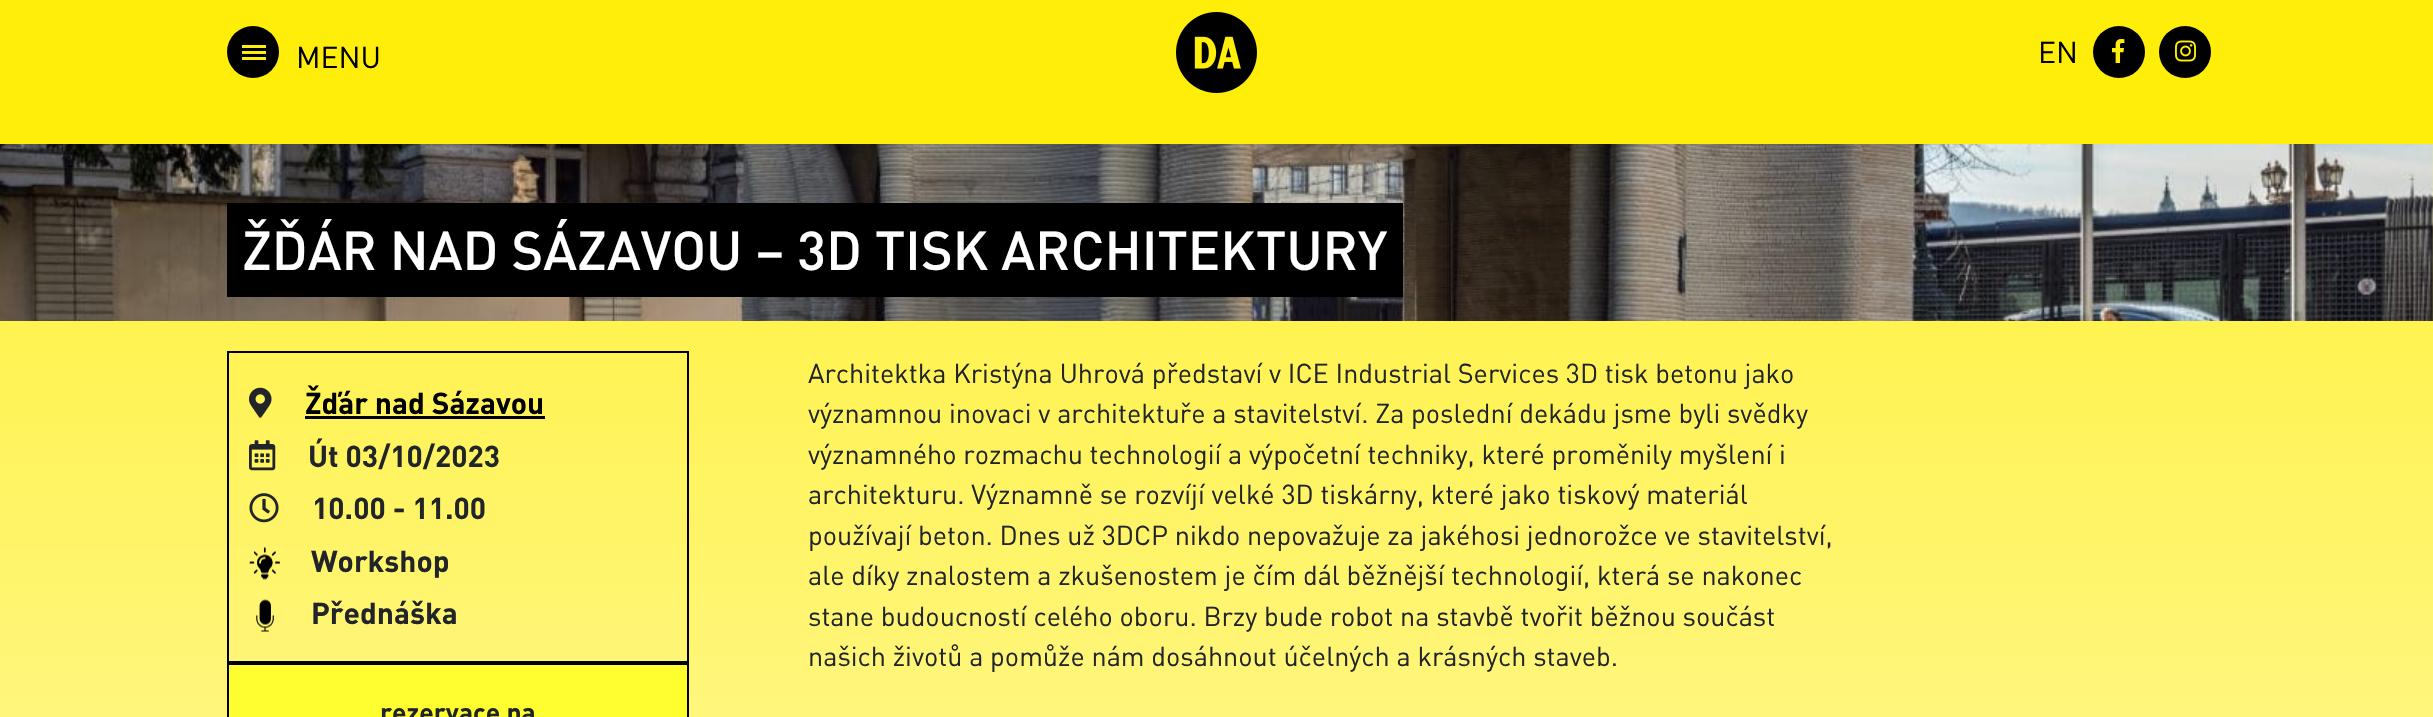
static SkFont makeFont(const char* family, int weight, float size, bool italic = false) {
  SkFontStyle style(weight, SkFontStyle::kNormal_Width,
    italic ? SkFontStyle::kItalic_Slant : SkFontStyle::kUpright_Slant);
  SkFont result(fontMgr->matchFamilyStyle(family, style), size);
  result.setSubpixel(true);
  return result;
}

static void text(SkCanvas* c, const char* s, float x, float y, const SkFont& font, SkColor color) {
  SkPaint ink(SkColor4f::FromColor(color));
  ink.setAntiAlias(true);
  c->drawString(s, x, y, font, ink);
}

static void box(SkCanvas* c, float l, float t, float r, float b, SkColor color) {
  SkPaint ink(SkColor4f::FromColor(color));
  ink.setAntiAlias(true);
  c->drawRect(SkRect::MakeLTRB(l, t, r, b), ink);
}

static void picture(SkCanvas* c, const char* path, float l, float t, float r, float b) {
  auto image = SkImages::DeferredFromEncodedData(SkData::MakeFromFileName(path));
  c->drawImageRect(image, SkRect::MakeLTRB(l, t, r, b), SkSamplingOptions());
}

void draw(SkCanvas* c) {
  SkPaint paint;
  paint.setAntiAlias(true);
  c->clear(0xffffffff);
  box(c, 0, 0, 2433, 144, 0xffffed0a);
  paint.setColor(0xff000000);
  c->drawCircle(253, 52, 26, paint);
  box(c, 242, 45, 266, 48, 0xffffed0a);
  box(c, 242, 51, 266, 54, 0xffffed0a);
  box(c, 242, 57, 266, 60, 0xffffed0a);
  SkFont face1 = makeFont("DIN", 400, 30);
  text(c, "MENU", 296, 68, face1, 0xff000000);
  picture(c, "img_01.png", 1176, 12, 1257, 93);
  text(c, "EN", 2038, 63, face1, 0xff000000);
  c->drawCircle(2119, 52, 26, paint);
  picture(c, "img_02.png", 2112, 39, 2125, 63);
  c->drawCircle(2185, 52, 26, paint);
  picture(c, "img_03.png", 2175, 40, 2196, 62);
  {
    const SkColor colors[] = {0xffffed00, 0xffffffff};
    const float stops[] = {0, 1};
    const SkPoint ends[] = {{1216, -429}, {1217, 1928}};
    paint.setShader(SkGradientShader::MakeLinear(ends, colors, stops, 2, SkTileMode::kClamp));
    paint.setAlpha(255);
  }
  c->drawRect(SkRect::MakeLTRB(0, 144, 2433, 717), paint);
  picture(c, "img_04.png", 0, 144, 2433, 321);
  box(c, 227, 203, 1403, 297, 0xff000000);
  SkFont face2 = makeFont("DIN", 500, 54);
  text(c, "ŽĎÁR NAD SÁZAVOU – 3D TISK ARCHITEKTURY", 242, 270, face2, 0xffffffff);
  paint.setStyle(SkPaint::kStroke_Style);
  paint.setStrokeWidth(2);
  paint.setShader(nullptr);
  paint.setColor(0xff000000);
  c->drawRect(SkRect::MakeLTRB(228, 352, 688, 662), paint);
  picture(c, "img_05.png", 249, 387, 272, 418);
  SkFont face3 = makeFont("DIN", 700, 30);
  text(c, "Žďár nad Sázavou", 305, 414, face3, 0xff000000);
  box(c, 305, 416, 545, 419, 0xff000000);
  picture(c, "img_06.png", 249, 440, 276, 471);
  text(c, "Út 03/10/2023", 308, 467, face3, 0xff212529);
  picture(c, "img_07.png", 249, 493, 279, 523);
  text(c, "10.00 - 11.00", 312, 519, face3, 0xff212529);
  picture(c, "img_08.png", 249, 547, 280, 580);
  text(c, "Workshop", 311, 572, face3, 0xff212529);
  picture(c, "img_09.png", 256, 599, 274, 632);
  text(c, "Přednáška", 311, 624, face3, 0xff212529);
  paint.setStyle(SkPaint::kFill_Style);
  paint.setColor(0xffffff30);
  c->drawRect(SkRect::MakeLTRB(228, 664, 688, 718), paint);
  paint.setStyle(SkPaint::kStroke_Style);
  paint.setColor(0xff000000);
  c->drawRect(SkRect::MakeLTRB(228, 664, 688, 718), paint);
  SkFont face4 = makeFont("DIN", 700, 26.5f);
  text(c, "rezervace na", 380, 722, face4, 0xff212529);
  SkFont face5 = makeFont("DIN", 400, 27);
  text(c, "Architektka Kristýna Uhrová představí v ICE Industrial Services 3D tisk betonu jako", 808, 383, face5, 0xff212529);
  text(c, "významnou inovaci v architektuře a stavitelství. Za poslední dekádu jsme byli svědky", 808, 423, face5, 0xff212529);
  text(c, "významného rozmachu technologií a výpočetní techniky, které proměnily myšlení i", 808, 464, face5, 0xff212529);
  text(c, "architekturu. Významně se rozvíjí velké 3D tiskárny, které jako tiskový materiál", 808, 504, face5, 0xff212529);
  text(c, "používají beton. Dnes už 3DCP nikdo nepovažuje za jakéhosi jednorožce ve stavitelství,", 808, 545, face5, 0xff212529);
  text(c, "ale díky znalostem a zkušenostem je čím dál běžnější technologií, která se nakonec", 808, 585, face5, 0xff212529);
  text(c, "stane budoucností celého oboru. Brzy bude robot na stavbě tvořit běžnou součást", 808, 626, face5, 0xff212529);
  text(c, "našich životů a pomůže nám dosáhnout účelných a krásných staveb.", 808, 666, face5, 0xff212529);
}
